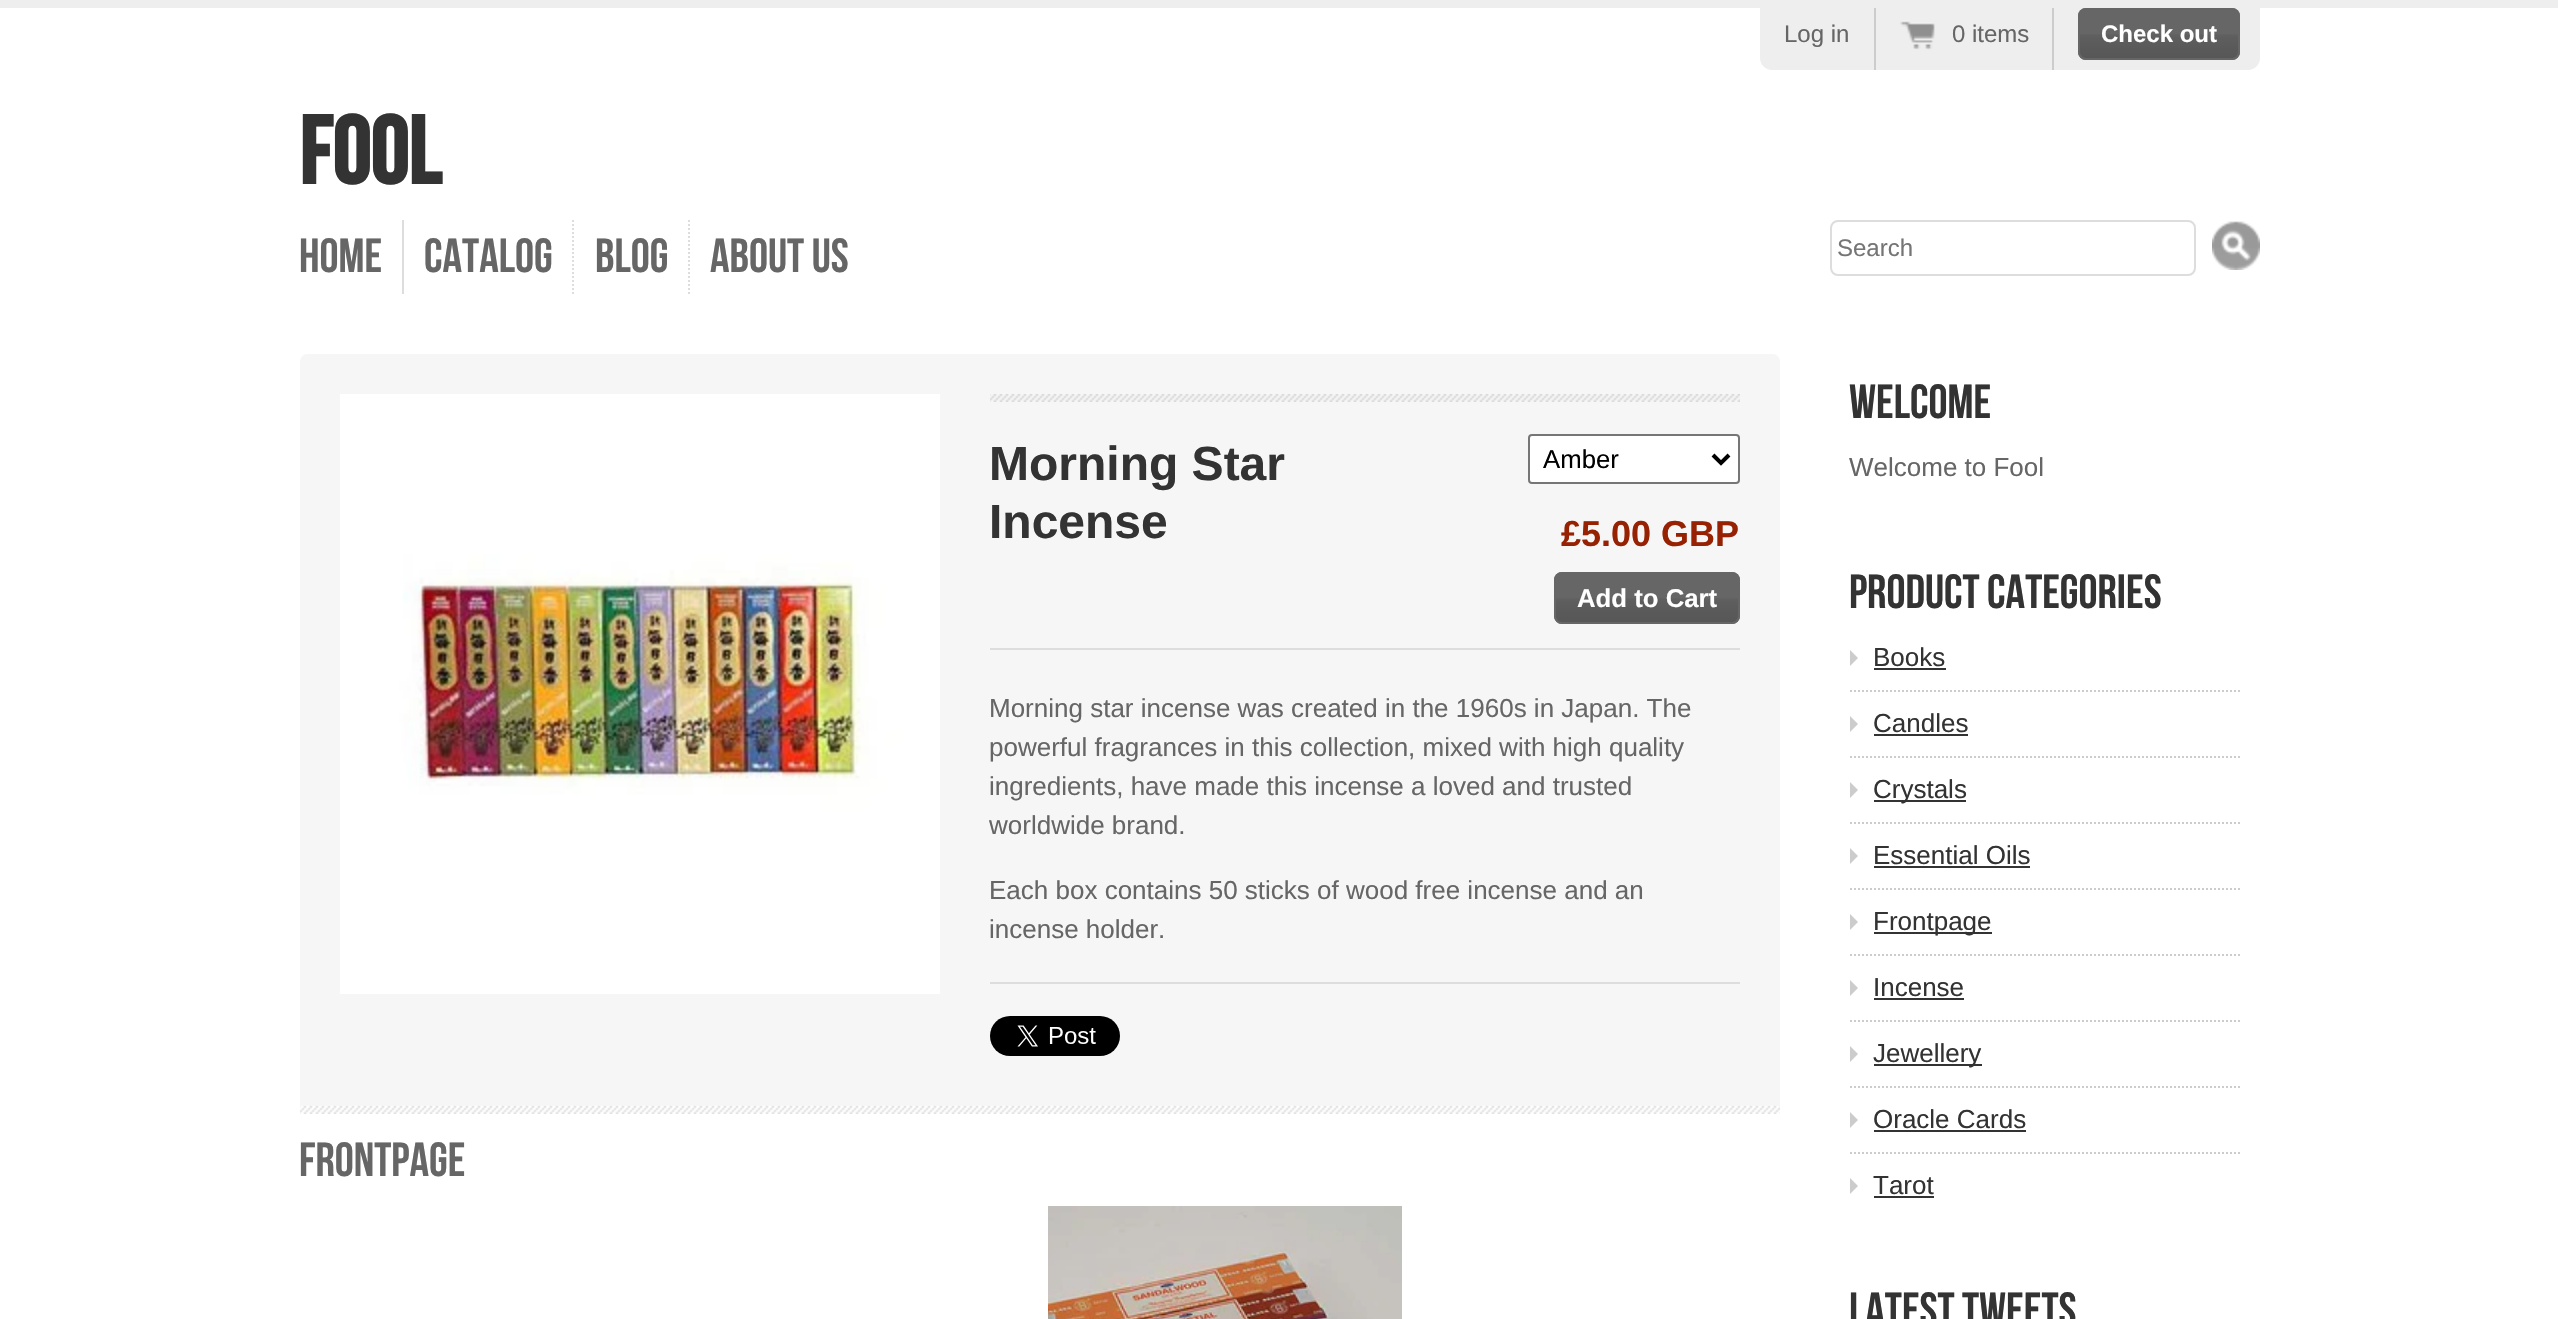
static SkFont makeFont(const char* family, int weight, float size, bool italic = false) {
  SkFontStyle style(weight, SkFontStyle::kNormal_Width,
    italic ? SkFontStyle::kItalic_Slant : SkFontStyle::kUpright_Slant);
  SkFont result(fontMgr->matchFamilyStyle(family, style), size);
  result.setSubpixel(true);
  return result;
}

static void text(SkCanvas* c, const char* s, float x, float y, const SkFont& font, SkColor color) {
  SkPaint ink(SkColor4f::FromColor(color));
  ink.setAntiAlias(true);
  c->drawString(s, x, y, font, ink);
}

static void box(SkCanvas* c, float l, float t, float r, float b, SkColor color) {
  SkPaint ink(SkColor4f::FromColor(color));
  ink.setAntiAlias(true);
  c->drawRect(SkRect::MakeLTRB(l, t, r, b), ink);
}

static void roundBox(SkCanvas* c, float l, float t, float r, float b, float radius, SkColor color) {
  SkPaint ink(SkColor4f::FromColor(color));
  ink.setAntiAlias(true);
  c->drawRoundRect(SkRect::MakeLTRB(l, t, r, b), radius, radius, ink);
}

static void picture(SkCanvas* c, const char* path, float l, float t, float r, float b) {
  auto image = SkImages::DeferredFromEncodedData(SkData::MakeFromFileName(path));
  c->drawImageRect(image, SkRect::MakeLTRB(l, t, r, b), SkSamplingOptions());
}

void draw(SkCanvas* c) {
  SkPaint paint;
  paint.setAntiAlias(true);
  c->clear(0xffffffff);
  box(c, 0, 0, 2558, 8, 0xffeeeeee);
  paint.setColor(0xffeeeeee);
  c->drawPath(SkPathBuilder().moveTo(1760, 8).lineTo(2260, 8).lineTo(2260, 58).cubicTo(2260, 64.5f, 2254.5f, 70, 2248, 70).lineTo(1772, 70).cubicTo(1765.5f, 70, 1760, 64.5f, 1760, 58).close().detach(), paint);
  box(c, 1874, 8, 1876, 70, 0xffcccccc);
  SkFont face1 = makeFont("Liberation Sans", 400, 24);
  text(c, "Log in", 1784, 42, face1, 0xff666666);
  box(c, 2052, 8, 2054, 70, 0xffcccccc);
  picture(c, "img_01.png", 1900, 20, 1935, 50);
  text(c, "0 items", 1952, 42, face1, 0xff666666);
  roundBox(c, 2078, 8, 2240, 60, 8, 0xff666666);
  picture(c, "img_02.png", 2078, 34, 2240, 58);
  paint.setStyle(SkPaint::kStroke_Style);
  paint.setStrokeWidth(2);
  paint.setColor(0xff666666);
  c->drawRoundRect(SkRect::MakeLTRB(2079, 9, 2239, 59), 7, 7, paint);
  SkFont face2 = makeFont("Liberation Sans", 700, 24);
  text(c, "Check out", 2101, 42, face2, 0xffffffff);
  SkFont face3 = makeFont("Bebas Neue", 700, 96);
  text(c, "Fool", 299, 184, face3, 0xff333333);
  box(c, 402, 220, 404, 294, 0xffdddddd);
  SkFont face4 = makeFont("Bebas Neue", 400, 48);
  text(c, "Home", 299, 272, face4, 0xff666666);
  paint.setColor(0xffdddddd);
  paint.setPathEffect(SkDashPathEffect::Make({{2, 2}}, 0));
  c->drawPath(SkPathBuilder().moveTo(573, 220).lineTo(573, 294).detach(), paint);
  paint.setPathEffect(nullptr);
  text(c, "Catalog", 424, 272, face4, 0xff666666);
  paint.setPathEffect(SkDashPathEffect::Make({{2, 2}}, 0));
  c->drawPath(SkPathBuilder().moveTo(689, 220).lineTo(689, 294).detach(), paint);
  paint.setPathEffect(nullptr);
  text(c, "Blog", 595, 272, face4, 0xff666666);
  text(c, "About Us", 710, 272, face4, 0xff666666);
  c->drawRoundRect(SkRect::MakeLTRB(1831, 221, 2195, 275), 7, 7, paint);
  text(c, "Search", 1837, 256, face1, 0xff757575);
  picture(c, "img_03.png", 2212, 221, 2260, 270);
  paint.setStyle(SkPaint::kFill_Style);
  paint.setColor(0xfff6f6f6);
  c->drawPath(SkPathBuilder().moveTo(308, 354).lineTo(1772, 354).cubicTo(1776.5f, 354, 1780, 357.5f, 1780, 362).lineTo(1780, 1106).lineTo(300, 1106).lineTo(300, 362).cubicTo(300, 357.5f, 303.5f, 354, 308, 354).close().detach(), paint);
  picture(c, "img_04.png", 340, 394, 940, 994);
  picture(c, "img_05.png", 990, 394, 1740, 402);
  box(c, 990, 648, 1740, 650, 0xffdddddd);
  SkFont face5 = makeFont("Liberation Sans", 700, 48);
  text(c, "Morning Star", 989, 480, face5, 0xff333333);
  text(c, "Incense", 989, 538, face5, 0xff333333);
  paint.setColor(0xffffffff);
  c->drawRoundRect(SkRect::MakeLTRB(1529, 435, 1739, 483), 3, 3, paint);
  paint.setStyle(SkPaint::kStroke_Style);
  paint.setColor(0xff767676);
  c->drawRoundRect(SkRect::MakeLTRB(1529, 435, 1739, 483), 3, 3, paint);
  paint.setStrokeWidth(4);
  paint.setColor(0xff000000);
  c->drawPath(SkPathBuilder().moveTo(1713, 455).lineTo(1721, 463).lineTo(1729, 455).detach(), paint);
  SkFont face6 = makeFont("Liberation Sans", 400, 25.75f);
  text(c, "Amber", 1543, 468, face6, 0xff000000);
  SkFont face7 = makeFont("Liberation Sans", 700, 36);
  text(c, "£5.00 GBP", 1561, 546, face7, 0xff972203);
  roundBox(c, 1554, 572, 1740, 624, 8, 0xff666666);
  picture(c, "img_06.png", 1554, 598, 1740, 622);
  paint.setStrokeWidth(2);
  paint.setColor(0xff666666);
  c->drawRoundRect(SkRect::MakeLTRB(1555, 573, 1739, 623), 7, 7, paint);
  SkFont face8 = makeFont("Liberation Sans", 700, 25.75f);
  text(c, "Add to Cart", 1577, 607, face8, 0xffffffff);
  SkFont face9 = makeFont("Liberation Sans", 400, 26);
  text(c, "Morning star incense was created in the 1960s in Japan. The", 989, 717, face9, 0xff666666);
  text(c, "powerful fragrances in this collection, mixed with high quality", 989, 756, face9, 0xff666666);
  text(c, "ingredients, have made this incense a loved and trusted", 989, 795, face9, 0xff666666);
  text(c, "worldwide brand.", 989, 834, face9, 0xff666666);
  text(c, "Each box contains 50 sticks of wood free incense and an", 989, 899, face9, 0xff666666);
  text(c, "incense holder.", 989, 938, face9, 0xff666666);
  box(c, 990, 982, 1740, 984, 0xffdddddd);
  picture(c, "img_07.png", 990, 1016, 1120, 1056);
  picture(c, "img_08.png", 300, 1106, 1780, 1114);
  text(c, "Frontpage", 299, 1176, face4, 0xff666666);
  picture(c, "img_09.png", 1048, 1206, 1402, 1319);
  text(c, "Welcome", 1849, 418, face4, 0xff333333);
  text(c, "Welcome to Fool", 1849, 476, face9, 0xff666666);
  text(c, "Product Categories", 1849, 608, face4, 0xff333333);
  paint.setStyle(SkPaint::kFill_Style);
  paint.setColor(0xffcccccc);
  c->drawPath(SkPathBuilder().moveTo(1850, 666).lineTo(1850, 650).lineTo(1858, 658).close().detach(), paint);
  text(c, "Books", 1873, 666, face9, 0xff333333);
  box(c, 1874, 668, 1946, 670, 0xff333333);
  paint.setStyle(SkPaint::kStroke_Style);
  paint.setPathEffect(SkDashPathEffect::Make({{2, 2}}, 0));
  c->drawPath(SkPathBuilder().moveTo(1850, 691).lineTo(2240, 691).detach(), paint);
  paint.setPathEffect(nullptr);
  paint.setStyle(SkPaint::kFill_Style);
  c->drawPath(SkPathBuilder().moveTo(1850, 732).lineTo(1850, 716).lineTo(1858, 724).close().detach(), paint);
  text(c, "Candles", 1873, 732, face9, 0xff333333);
  box(c, 1874, 734, 1968, 736, 0xff333333);
  paint.setStyle(SkPaint::kStroke_Style);
  paint.setPathEffect(SkDashPathEffect::Make({{2, 2}}, 0));
  c->drawPath(SkPathBuilder().moveTo(1850, 757).lineTo(2240, 757).detach(), paint);
  paint.setPathEffect(nullptr);
  paint.setStyle(SkPaint::kFill_Style);
  c->drawPath(SkPathBuilder().moveTo(1850, 798).lineTo(1850, 782).lineTo(1858, 790).close().detach(), paint);
  box(c, 1874, 800, 1966, 802, 0xff333333);
  text(c, "Crystals", 1873, 798, face9, 0xff333333);
  paint.setStyle(SkPaint::kStroke_Style);
  paint.setPathEffect(SkDashPathEffect::Make({{2, 2}}, 0));
  c->drawPath(SkPathBuilder().moveTo(1850, 823).lineTo(2240, 823).detach(), paint);
  paint.setPathEffect(nullptr);
  paint.setStyle(SkPaint::kFill_Style);
  c->drawPath(SkPathBuilder().moveTo(1850, 864).lineTo(1850, 848).lineTo(1858, 856).close().detach(), paint);
  text(c, "Essential Oils", 1873, 864, face9, 0xff333333);
  box(c, 1874, 866, 2030, 868, 0xff333333);
  paint.setStyle(SkPaint::kStroke_Style);
  paint.setPathEffect(SkDashPathEffect::Make({{2, 2}}, 0));
  c->drawPath(SkPathBuilder().moveTo(1850, 889).lineTo(2240, 889).detach(), paint);
  paint.setPathEffect(nullptr);
  paint.setStyle(SkPaint::kFill_Style);
  c->drawPath(SkPathBuilder().moveTo(1850, 930).lineTo(1850, 914).lineTo(1858, 922).close().detach(), paint);
  box(c, 1874, 932, 1992, 934, 0xff333333);
  text(c, "Frontpage", 1873, 930, face9, 0xff333333);
  paint.setStyle(SkPaint::kStroke_Style);
  paint.setPathEffect(SkDashPathEffect::Make({{2, 2}}, 0));
  c->drawPath(SkPathBuilder().moveTo(1850, 955).lineTo(2240, 955).detach(), paint);
  paint.setPathEffect(nullptr);
  paint.setStyle(SkPaint::kFill_Style);
  c->drawPath(SkPathBuilder().moveTo(1850, 996).lineTo(1850, 980).lineTo(1858, 988).close().detach(), paint);
  text(c, "Incense", 1873, 996, face9, 0xff333333);
  box(c, 1874, 998, 1964, 1000, 0xff333333);
  paint.setStyle(SkPaint::kStroke_Style);
  paint.setPathEffect(SkDashPathEffect::Make({{2, 2}}, 0));
  c->drawPath(SkPathBuilder().moveTo(1850, 1021).lineTo(2240, 1021).detach(), paint);
  paint.setPathEffect(nullptr);
  paint.setStyle(SkPaint::kFill_Style);
  c->drawPath(SkPathBuilder().moveTo(1850, 1062).lineTo(1850, 1046).lineTo(1858, 1054).close().detach(), paint);
  box(c, 1874, 1064, 1982, 1066, 0xff333333);
  text(c, "Jewellery", 1873, 1062, face9, 0xff333333);
  paint.setStyle(SkPaint::kStroke_Style);
  paint.setPathEffect(SkDashPathEffect::Make({{2, 2}}, 0));
  c->drawPath(SkPathBuilder().moveTo(1850, 1087).lineTo(2240, 1087).detach(), paint);
  paint.setPathEffect(nullptr);
  paint.setStyle(SkPaint::kFill_Style);
  c->drawPath(SkPathBuilder().moveTo(1850, 1128).lineTo(1850, 1112).lineTo(1858, 1120).close().detach(), paint);
  text(c, "Oracle Cards", 1873, 1128, face9, 0xff333333);
  box(c, 1874, 1130, 2026, 1132, 0xff333333);
  paint.setStyle(SkPaint::kStroke_Style);
  paint.setPathEffect(SkDashPathEffect::Make({{2, 2}}, 0));
  c->drawPath(SkPathBuilder().moveTo(1850, 1153).lineTo(2240, 1153).detach(), paint);
  paint.setPathEffect(nullptr);
  paint.setStyle(SkPaint::kFill_Style);
  c->drawPath(SkPathBuilder().moveTo(1850, 1194).lineTo(1850, 1178).lineTo(1858, 1186).close().detach(), paint);
  text(c, "Tarot", 1873, 1194, face9, 0xff333333);
  box(c, 1874, 1196, 1934, 1198, 0xff333333);
  text(c, "Latest Tweets", 1849, 1326, face4, 0xff333333);
}
